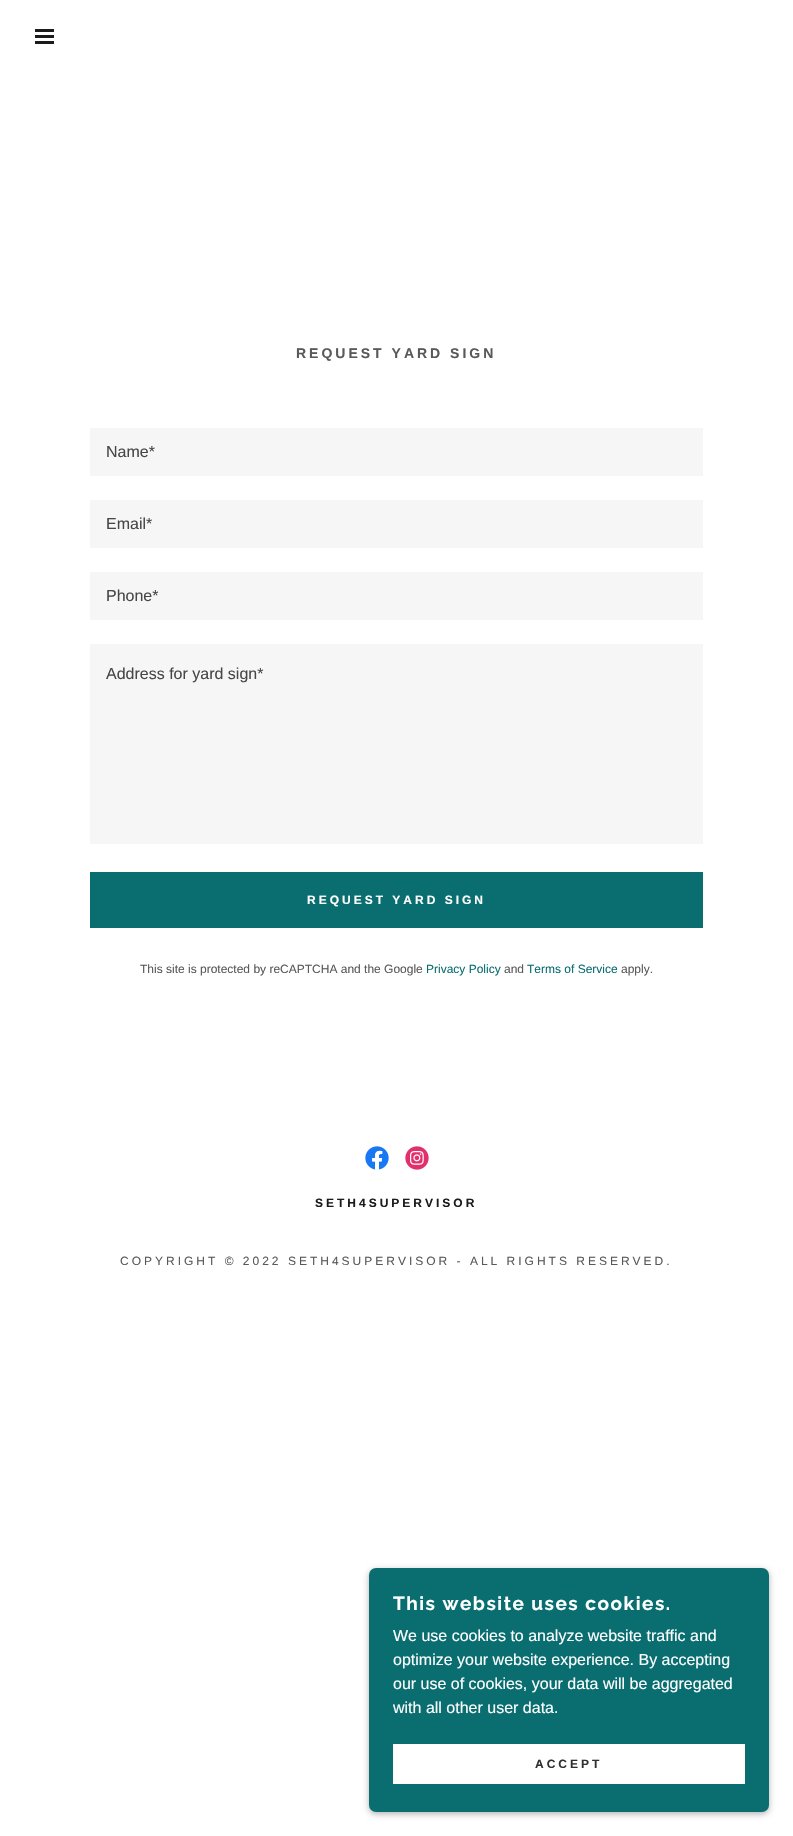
static SkFont makeFont(const char* family, int weight, float size, bool italic = false) {
  SkFontStyle style(weight, SkFontStyle::kNormal_Width,
    italic ? SkFontStyle::kItalic_Slant : SkFontStyle::kUpright_Slant);
  SkFont result(fontMgr->matchFamilyStyle(family, style), size);
  result.setSubpixel(true);
  return result;
}

static void text(SkCanvas* c, const char* s, float x, float y, const SkFont& font, SkColor color) {
  SkPaint ink(SkColor4f::FromColor(color));
  ink.setAntiAlias(true);
  c->drawString(s, x, y, font, ink);
}

static void spacedText(SkCanvas* c, const char* s, float x, float y, const SkFont& font, const SkPaint& ink, float letter, float word) {
  std::vector<SkGlyphID> glyphs(font.countText(s, strlen(s), SkTextEncoding::kUTF8));
  std::vector<float> xs(glyphs.size());
  font.textToGlyphs(s, strlen(s), SkTextEncoding::kUTF8, glyphs);
  font.getXPos(glyphs, xs, x);
  float extra = 0;
  for (size_t i = 0; i < glyphs.size(); i++) {
    xs[i] += extra;
    extra += letter + word * (glyphs[i] == font.unicharToGlyph(' '));
  }
  c->drawTextBlob(SkTextBlob::MakeFromPosHGlyphs(glyphs, xs, y, font), 0, 0, ink);
}

static void box(SkCanvas* c, float l, float t, float r, float b, SkColor color) {
  SkPaint ink(SkColor4f::FromColor(color));
  ink.setAntiAlias(true);
  c->drawRect(SkRect::MakeLTRB(l, t, r, b), ink);
}

static void roundBox(SkCanvas* c, float l, float t, float r, float b, float radius, SkColor color) {
  SkPaint ink(SkColor4f::FromColor(color));
  ink.setAntiAlias(true);
  c->drawRoundRect(SkRect::MakeLTRB(l, t, r, b), radius, radius, ink);
}

static void picture(SkCanvas* c, const char* path, float l, float t, float r, float b) {
  auto image = SkImages::DeferredFromEncodedData(SkData::MakeFromFileName(path));
  c->drawImageRect(image, SkRect::MakeLTRB(l, t, r, b), SkSamplingOptions());
}

void draw(SkCanvas* c) {
  SkPaint paint;
  paint.setAntiAlias(true);
  c->clear(0xffffffff);
  box(c, 35, 29, 54, 32, 0xff1b1b1b);
  box(c, 35, 35, 54, 38, 0xff1b1b1b);
  box(c, 35, 41, 54, 44, 0xff1b1b1b);
  SkFont face1 = makeFont("Liberation Sans", 700, 14);
  paint.setColor(0xff595959);
  spacedText(c, "REQUEST YARD SIGN", 296, 358, face1, paint, 3, 0);
  box(c, 90, 428, 703, 476, 0xfff6f6f6);
  SkFont face2 = makeFont("Liberation Sans", 400, 16);
  text(c, "Name*", 106, 457, face2, 0xff474747);
  box(c, 90, 500, 703, 548, 0xfff6f6f6);
  text(c, "Email*", 106, 529, face2, 0xff474747);
  box(c, 90, 572, 703, 620, 0xfff6f6f6);
  text(c, "Phone*", 106, 601, face2, 0xff474747);
  box(c, 90, 644, 703, 844, 0xfff6f6f6);
  text(c, "Address for yard sign*", 106, 679, face2, 0xff474747);
  box(c, 90, 872, 703, 928, 0xff0a6e71);
  SkFont face3 = makeFont("Liberation Sans", 700, 12);
  paint.setColor(0xffffffff);
  spacedText(c, "REQUEST YARD SIGN", 307, 904, face3, paint, 3, 0);
  SkFont face4 = makeFont("Liberation Sans", 400, 12);
  text(c, "This site is protected by reCAPTCHA and the Google", 140, 973, face4, 0xff595959);
  text(c, "Privacy Policy", 426, 973, face4, 0xff0a6e71);
  text(c, "and", 504, 973, face4, 0xff595959);
  text(c, "Terms of Service", 527, 973, face4, 0xff0a6e71);
  text(c, "apply.", 621, 973, face4, 0xff595959);
  picture(c, "img_01.png", 365, 1146, 389, 1170);
  picture(c, "img_02.png", 405, 1146, 429, 1170);
  paint.setColor(0xff1b1b1b);
  spacedText(c, "SETH4SUPERVISOR", 315, 1207, face3, paint, 3, 0);
  paint.setColor(0xff595959);
  spacedText(c, "COPYRIGHT © 2022 SETH4SUPERVISOR - ALL RIGHTS RESERVED.", 120, 1265, face4, paint, 3, 0);
  paint.setColor(0x4d000000);
  paint.setMaskFilter(SkMaskFilter::MakeBlur(kNormal_SkBlurStyle, 3));
  c->drawRoundRect(SkRect::MakeLTRB(369, 1570, 769, 1814), 7, 7, paint);
  paint.setMaskFilter(nullptr);
  roundBox(c, 369, 1568, 769, 1812, 7, 0xff0a6e71);
  SkFont face5 = makeFont("Raleway", 700, 19);
  paint.setColor(0xffffffff);
  spacedText(c, "This website uses cookies.", 393, 1610, face5, paint, 1.5f, 0);
  text(c, "We use cookies to analyze website traffic and", 393, 1641, face2, 0xffffffff);
  text(c, "optimize your website experience. By accepting", 393, 1665, face2, 0xffffffff);
  text(c, "our use of cookies, your data will be aggregated", 393, 1689, face2, 0xffffffff);
  text(c, "with all other user data.", 393, 1713, face2, 0xffffffff);
  box(c, 393, 1744, 745, 1784, 0xffffffff);
  paint.setColor(0xff303030);
  spacedText(c, "ACCEPT", 535, 1768, face3, paint, 3, 0);
}
